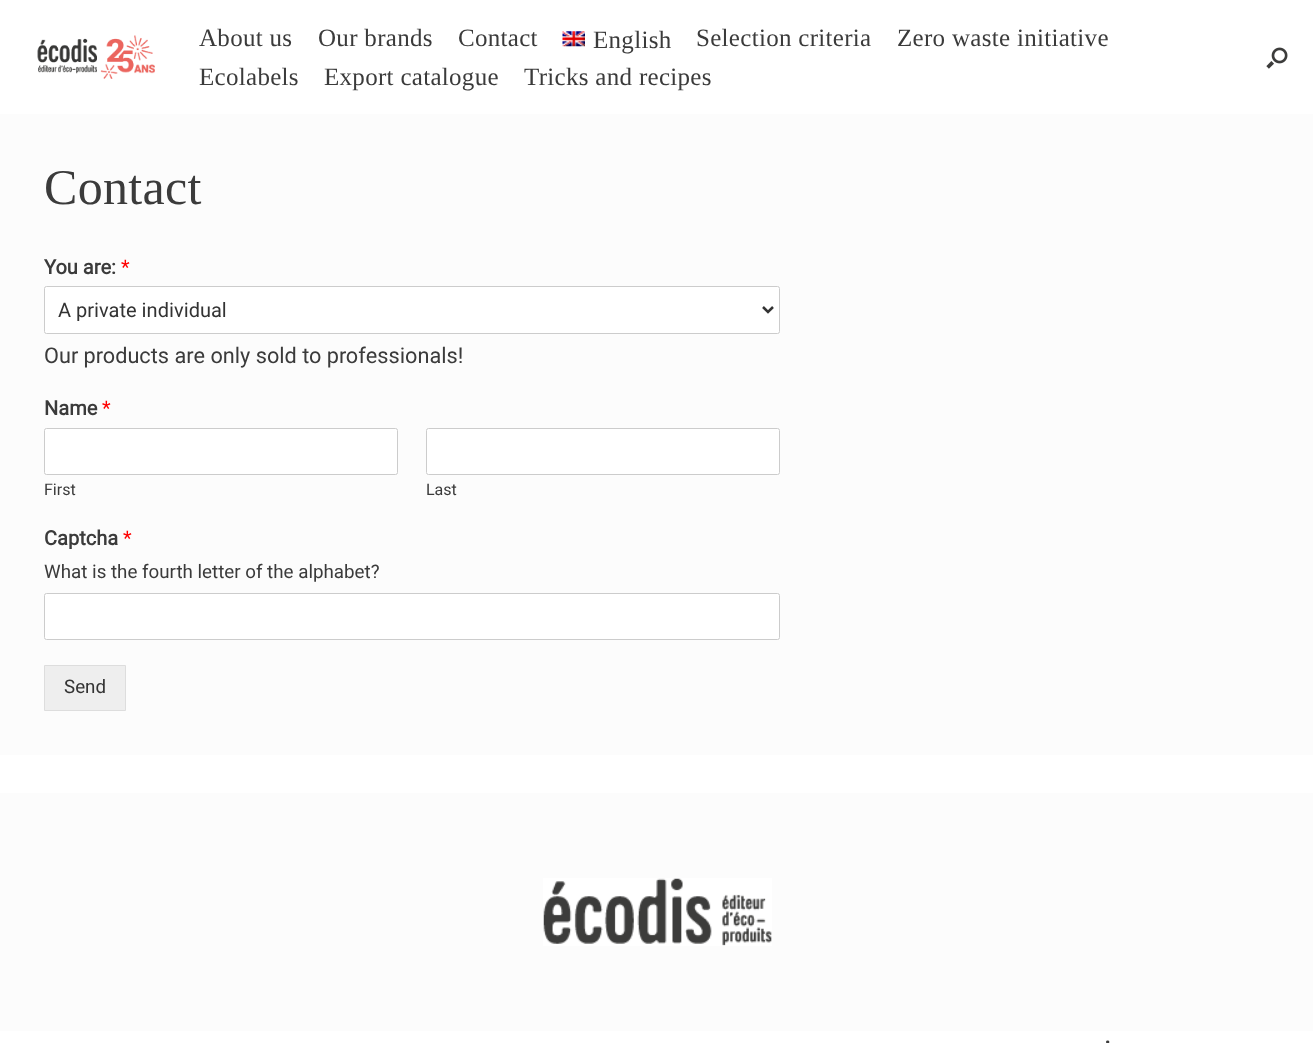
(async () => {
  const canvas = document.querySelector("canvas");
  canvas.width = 1313;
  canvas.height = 1043;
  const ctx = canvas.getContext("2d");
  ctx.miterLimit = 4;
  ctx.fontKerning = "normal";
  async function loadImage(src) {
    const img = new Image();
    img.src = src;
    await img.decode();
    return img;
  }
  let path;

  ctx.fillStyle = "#ffffff";
  ctx.fillRect(0, 0, 1313, 1043);
  ctx.drawImage(await loadImage("img/1.png"), 37, 35, 118, 44);
  ctx.drawImage(await loadImage("img/2.png"), 562, 31, 23, 16);
  ctx.drawImage(await loadImage("img/3.png"), 1266, 47, 22, 22);
  ctx.fillStyle = "#fcfcfc";
  ctx.fillRect(0, 114, 1313, 641);
  ctx.fillStyle = "#ffffff";
  ctx.beginPath();
  ctx.roundRect(44.5, 286.5, 735, 47, 2);
  ctx.fill();
  ctx.strokeStyle = "#cccccc";
  ctx.stroke();
  path = new Path2D("M763 307L768 312L773 307");
  ctx.strokeStyle = "#333333";
  ctx.lineWidth = 2.5;
  ctx.stroke(path);
  ctx.beginPath();
  ctx.roundRect(44.5, 428.5, 353, 46, 2);
  ctx.fill();
  ctx.strokeStyle = "#cccccc";
  ctx.lineWidth = 1;
  ctx.stroke();
  ctx.beginPath();
  ctx.roundRect(426.5, 428.5, 353, 46, 2);
  ctx.fill();
  ctx.stroke();
  ctx.beginPath();
  ctx.roundRect(44.5, 593.5, 735, 46, 2);
  ctx.fill();
  ctx.stroke();
  ctx.fillStyle = "#eeeeee";
  ctx.beginPath();
  ctx.rect(44.5, 665.5, 81, 45);
  ctx.fill();
  ctx.strokeStyle = "#dddddd";
  ctx.stroke();
  ctx.fillStyle = "#fcfcfc";
  ctx.fillRect(0, 793, 1313, 238);
  ctx.drawImage(await loadImage("img/4.png"), 543, 878, 229, 68);
  ctx.letterSpacing = "0.3px";
  ctx.font = "25px Liberation Serif";
  ctx.fillStyle = "#3b3b3b";
  for (const [text, x, y] of [
    ["About us", 199, 46],
    ["Our brands", 318, 46],
    ["Contact", 458, 46],
    ["English", 593, 48],
    ["Selection criteria", 696, 46],
    ["Zero waste initiative", 897, 46],
    ["Ecolabels", 199, 85],
    ["Export catalogue", 324, 85],
    ["Tricks and recipes", 524, 85],
  ]) {
    ctx.fillText(text, x, y);
  }
  ctx.font = "50px Liberation Serif";
  ctx.fillText("Contact", 44, 204);
  ctx.letterSpacing = "0px";
  ctx.font = "bold 20px Heebo";
  ctx.fillText("You are:", 44, 274);
  ctx.font = "20px Heebo";
  ctx.fillStyle = "#ff0000";
  ctx.fillText("*", 121, 274);
  ctx.fillStyle = "#333333";
  ctx.fillText("A private individual", 58, 317);
  ctx.font = "21.7px Heebo";
  ctx.fillStyle = "#3b3b3b";
  ctx.fillText("Our products are only sold to professionals!", 44, 363);
  ctx.font = "bold 20px Heebo";
  ctx.fillText("Name", 44, 415);
  ctx.font = "20px Heebo";
  ctx.fillStyle = "#ff0000";
  ctx.fillText("*", 102, 415);
  ctx.font = "16px Heebo";
  ctx.fillStyle = "#3b3b3b";
  ctx.fillText("First", 44, 495);
  ctx.fillText("Last", 426, 495);
  ctx.font = "bold 20px Heebo";
  ctx.fillText("Captcha", 44, 545);
  ctx.font = "20px Heebo";
  ctx.fillStyle = "#ff0000";
  ctx.fillText("*", 123, 545);
  ctx.font = "18.75px Heebo";
  ctx.fillStyle = "#3b3b3b";
  ctx.fillText("What is the fourth letter of the alphabet?", 44, 578);
  ctx.fillStyle = "#333333";
  ctx.fillText("Send", 64, 693);
  ctx.font = "16px Heebo";
  ctx.fillStyle = "#3b3b3b";
  ctx.fillText("•", 1105, 1048);
})();
